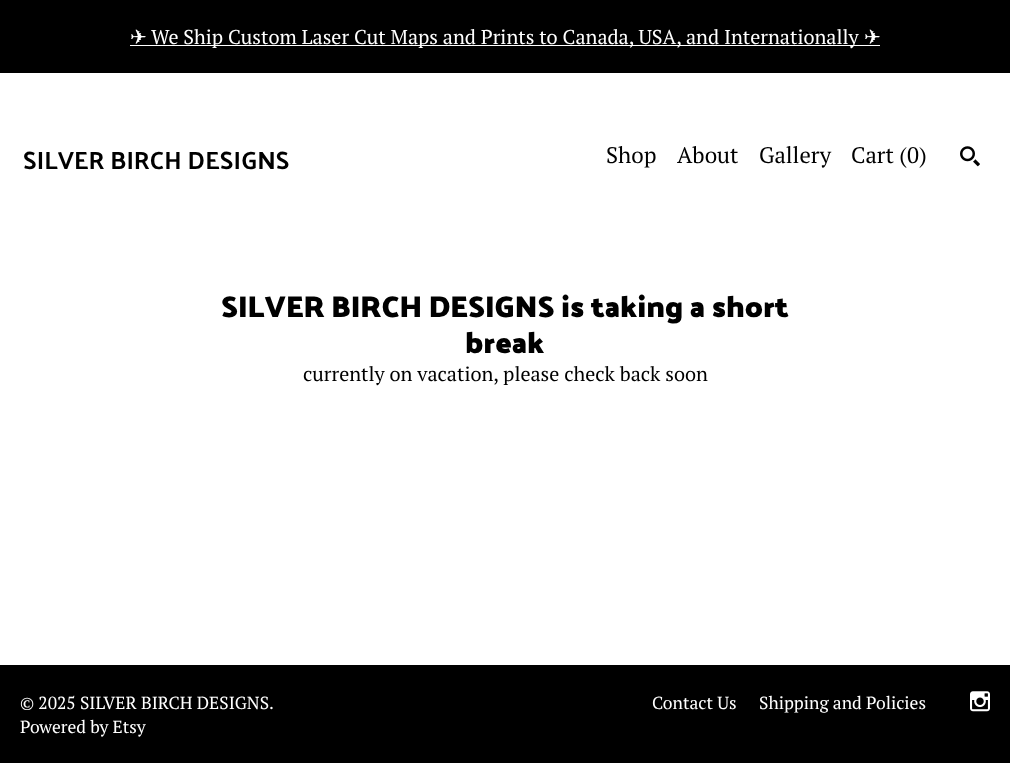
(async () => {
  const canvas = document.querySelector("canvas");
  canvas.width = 1010;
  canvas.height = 763;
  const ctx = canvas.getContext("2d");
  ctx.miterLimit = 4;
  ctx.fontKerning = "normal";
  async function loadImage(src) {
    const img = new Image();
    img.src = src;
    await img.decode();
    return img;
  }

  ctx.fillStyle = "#ffffff";
  ctx.fillRect(0, 0, 1010, 763);
  ctx.fillStyle = "#000000";
  ctx.fillRect(0, 0, 1010, 73);
  ctx.fillStyle = "#ffffff";
  ctx.fillRect(130, 45, 750, 1);
  ctx.drawImage(await loadImage("img/1.png"), 960, 146, 20, 21);
  ctx.fillStyle = "#000000";
  ctx.fillRect(0, 665, 1010, 98);
  ctx.drawImage(await loadImage("img/2.png"), 970, 691, 20, 21);
  ctx.font = "20px DejaVu Sans";
  ctx.fillStyle = "#ffffff";
  ctx.fillText("✈", 130, 44);
  ctx.font = "20px PT Serif";
  ctx.fillText("We Ship Custom Laser Cut Maps and Prints to Canada, USA, and Internationally", 151, 44);
  ctx.font = "20px DejaVu Sans";
  ctx.fillText("✈", 864, 44);
  ctx.font = "25px Palanquin Dark";
  ctx.fillStyle = "#000000";
  ctx.fillText("SILVER BIRCH DESIGNS", 23, 169);
  ctx.font = "22.5px PT Serif";
  for (const [text, x, y] of [
    ["Shop", 606, 163],
    ["About", 677, 163],
    ["Gallery", 759, 163],
    ["Cart (0)", 851, 163],
  ]) {
    ctx.fillText(text, x, y);
  }
  ctx.font = "bold 30px Palanquin Dark";
  ctx.fillText("SILVER BIRCH DESIGNS is taking a short", 221, 317);
  ctx.fillText("break", 465, 353);
  ctx.font = "20px PT Serif";
  ctx.fillText("currently on vacation, please check back soon", 303, 381);
  ctx.font = "17.5px PT Serif";
  ctx.fillStyle = "#ffffff";
  for (const [text, x, y] of [
    ["© 2025 SILVER BIRCH DESIGNS.", 20, 709],
    ["Powered by Etsy", 20, 733],
    ["Contact Us", 652, 709],
    ["Shipping and Policies", 759, 709],
  ]) {
    ctx.fillText(text, x, y);
  }
})();
